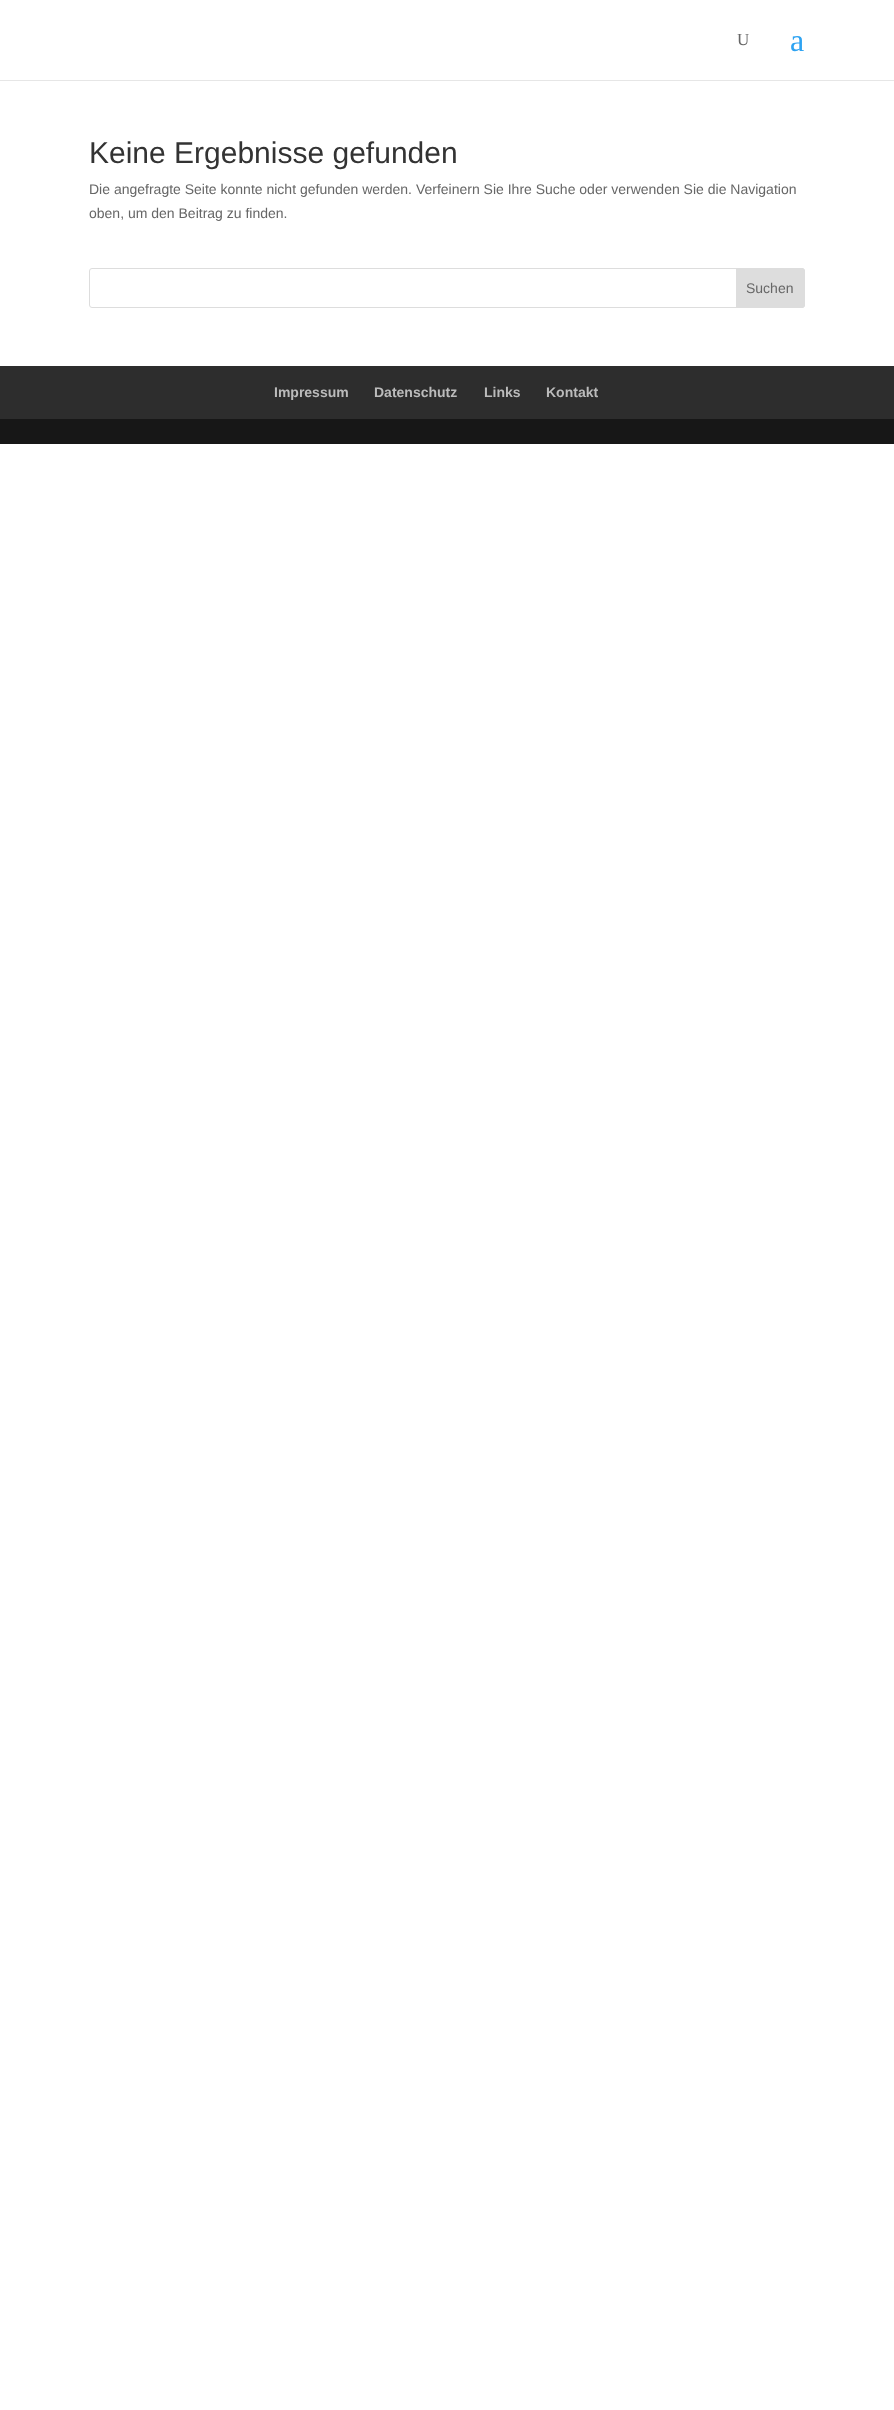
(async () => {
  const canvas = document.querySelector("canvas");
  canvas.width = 894;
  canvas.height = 2410;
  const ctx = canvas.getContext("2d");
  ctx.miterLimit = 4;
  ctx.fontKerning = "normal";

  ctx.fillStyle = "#ffffff";
  ctx.fillRect(0, 0, 894, 2410);
  ctx.fillStyle = "#e6e6e6";
  ctx.fillRect(0, 80, 894, 1);
  ctx.beginPath();
  ctx.roundRect(89.5, 268.5, 715, 39, 2.5);
  ctx.strokeStyle = "#dddddd";
  ctx.stroke();
  ctx.fillStyle = "#dddddd";
  ctx.beginPath();
  ctx.roundRect(736.5, 268.5, 68, 39, [0, 2.5, 2.5, 0]);
  ctx.fill();
  ctx.stroke();
  ctx.fillStyle = "#2d2d2d";
  ctx.fillRect(0, 366, 894, 53);
  ctx.fillStyle = "#171717";
  ctx.fillRect(0, 419, 894, 25);
  ctx.font = "17px Liberation Serif";
  ctx.fillStyle = "#666666";
  ctx.fillText("U", 737, 45);
  ctx.font = "32px Liberation Serif";
  ctx.fillStyle = "#2ea3f2";
  ctx.fillText("a", 790, 51);
  ctx.font = "30px Liberation Sans";
  ctx.fillStyle = "#333333";
  ctx.fillText("Keine Ergebnisse gefunden", 89, 163);
  ctx.font = "14px Liberation Sans";
  ctx.fillStyle = "#666666";
  for (const [text, x, y] of [
    ["Die angefragte Seite konnte nicht gefunden werden. Verfeinern Sie Ihre Suche oder verwenden Sie die Navigation", 89, 194],
    ["oben, um den Beitrag zu finden.", 89, 218],
    ["Suchen", 746, 293],
  ]) {
    ctx.fillText(text, x, y);
  }
  ctx.font = "bold 14px Liberation Sans";
  ctx.fillStyle = "#bbbbbb";
  for (const [text, x, y] of [
    ["Impressum", 274, 397],
    ["Datenschutz", 374, 397],
    ["Links", 484, 397],
    ["Kontakt", 546, 397],
  ]) {
    ctx.fillText(text, x, y);
  }
})();
